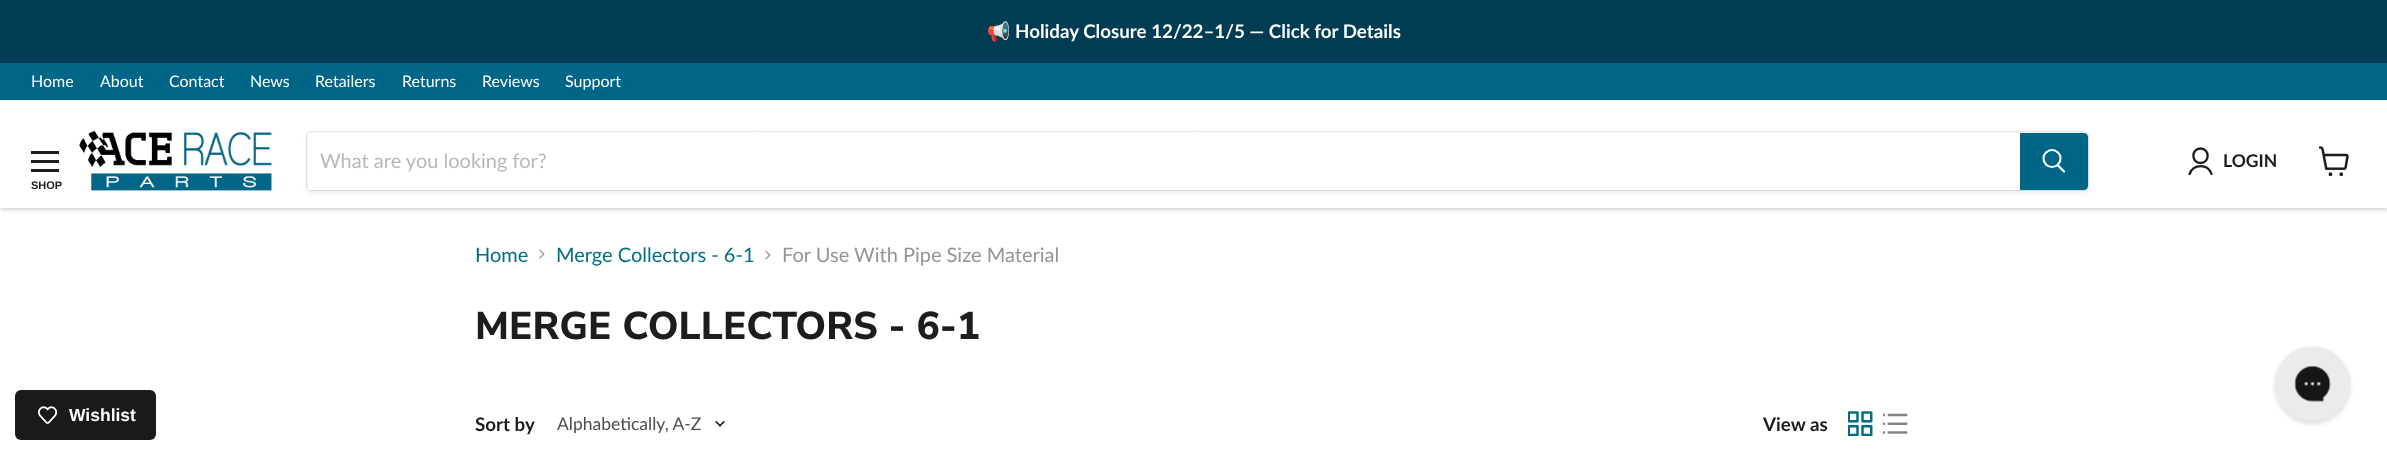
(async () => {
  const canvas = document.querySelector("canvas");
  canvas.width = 2387;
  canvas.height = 455;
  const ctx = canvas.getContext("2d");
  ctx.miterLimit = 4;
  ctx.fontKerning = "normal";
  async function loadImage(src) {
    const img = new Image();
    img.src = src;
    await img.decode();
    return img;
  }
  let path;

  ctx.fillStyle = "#ffffff";
  ctx.fillRect(0, 0, 2387, 455);
  ctx.fillStyle = "#003c52";
  ctx.fillRect(0, 0, 2387, 63);
  ctx.fillStyle = "rgba(128, 128, 128, 0.25)";
  ctx.filter = "blur(2.5px)";
  ctx.beginPath();
  ctx.rect(0, 103, 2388, 106);
  ctx.fill();
  ctx.filter = "none";
  ctx.filter = "blur(2.5px)";
  ctx.beginPath();
  ctx.rect(0, 103, 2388, 106);
  ctx.fill();
  ctx.filter = "none";
  ctx.fillStyle = "#006688";
  ctx.fillRect(0, 63, 2387, 37);
  ctx.fillStyle = "#ffffff";
  ctx.fillRect(0, 100, 2387, 108);
  ctx.drawImage(await loadImage("img/1.png"), 79, 131, 193, 60);
  ctx.fillStyle = "rgba(128, 128, 128, 0.11)";
  ctx.filter = "blur(2px)";
  ctx.beginPath();
  ctx.roundRect(306, 134, 1783, 60, 5);
  ctx.fill();
  ctx.filter = "none";
  ctx.beginPath();
  ctx.roundRect(306.5, 131.5, 1782, 59, 4.5);
  ctx.strokeStyle = "rgba(128, 128, 128, 0.2)";
  ctx.stroke();
  ctx.fillStyle = "#ffffff";
  ctx.fillRect(308, 133, 1712, 57);
  ctx.fillStyle = "#006688";
  ctx.beginPath();
  ctx.roundRect(2020.5, 133.5, 67, 56, [0, 3.5, 3.5, 0]);
  ctx.fill();
  ctx.strokeStyle = "#006688";
  ctx.stroke();
  path = new Path2D("M2064 171.5L2058 165.5");
  ctx.strokeStyle = "#ffffff";
  ctx.lineWidth = 2.2;
  ctx.lineCap = "round";
  ctx.stroke(path);
  ctx.beginPath();
  ctx.arc(2052, 158.5, 8.5, 0, Math.PI * 2);
  ctx.stroke();
  path = new Path2D("M2200.5 163C2210 163 2210 148.5 2200.5 148.5C2191 148.5 2191 163 2200.5 163ZM2211.5 174C2208 163.5 2193.5 163.5 2189.5 174");
  ctx.strokeStyle = "#1d1d1d";
  ctx.lineWidth = 2.3;
  ctx.lineJoin = "round";
  ctx.stroke(path);
  ctx.drawImage(await loadImage("img/2.png"), 2319, 146, 30, 30);
  for (const [x, y, w, h, color] of [
    [31, 151, 28, 3, "#1d1d1d"],
    [31, 160, 28, 3, "#1d1d1d"],
    [31, 169, 28, 3, "#1d1d1d"],
  ]) {
    ctx.fillStyle = color;
    ctx.fillRect(x, y, w, h);
  }
  ctx.fillStyle = "#1a1a1a";
  ctx.beginPath();
  ctx.roundRect(15, 390, 141, 50, 6);
  ctx.fill();
  ctx.drawImage(await loadImage("img/3.png"), 38, 406, 20, 18);
  ctx.drawImage(await loadImage("img/4.png"), 539, 249, 6, 10);
  ctx.drawImage(await loadImage("img/5.png"), 765, 250, 6, 10);
  ctx.drawImage(await loadImage("img/6.png"), 715, 420, 10, 7);
  ctx.drawImage(await loadImage("img/7.png"), 1848, 411, 25, 25);
  ctx.drawImage(await loadImage("img/8.png"), 1883, 413, 25, 21);
  ctx.drawImage(await loadImage("img/9.png"), 2272, 346, 81, 80);
  ctx.font = "bold 18.75px Noto Color Emoji";
  ctx.fillStyle = "#ffffff";
  ctx.fillText("📢", 987, 38);
  ctx.font = "bold 18.75px Lato";
  ctx.fillText("Holiday Closure 12/22–1/5 — Click for Details", 1015, 38);
  ctx.font = "16px Lato";
  for (const [text, x, y] of [
    ["Home", 31, 87],
    ["About", 100, 87],
    ["Contact", 169, 87],
    ["News", 250, 87],
    ["Retailers", 315, 87],
    ["Returns", 402, 87],
    ["Reviews", 482, 87],
    ["Support", 565, 87],
  ]) {
    ctx.fillText(text, x, y);
  }
  ctx.font = "20px Lato";
  ctx.fillStyle = "#b8b8b8";
  ctx.fillText("What are you looking for?", 320, 168);
  ctx.font = "bold 17.5px Lato";
  ctx.fillStyle = "#1d1d1d";
  ctx.fillText("LOGIN", 2223, 167);
  ctx.font = "bold 11px Liberation Sans";
  ctx.fillText("SHOP", 31, 189);
  ctx.font = "bold 17.5px Liberation Sans";
  ctx.fillStyle = "#ffffff";
  ctx.fillText("Wishlist", 69, 421);
  ctx.font = "20px Lato";
  ctx.fillStyle = "#046e82";
  ctx.fillText("Home", 475, 262);
  ctx.fillText("Merge Collectors - 6-1", 556, 262);
  ctx.fillStyle = "#949494";
  ctx.fillText("For Use With Pipe Size Material", 782, 262);
  ctx.font = "800 38.75px Nunito Sans";
  ctx.fillStyle = "#1d1d1d";
  ctx.fillText("MERGE COLLECTORS - 6-1", 475, 339);
  ctx.font = "bold 18.75px Lato";
  ctx.fillText("Sort by", 475, 431);
  ctx.font = "17.5px Lato";
  ctx.fillStyle = "#4d4d4d";
  ctx.fillText("Alphabetically, A-Z", 557, 430);
  ctx.font = "bold 18.75px Lato";
  ctx.fillStyle = "#1d1d1d";
  ctx.fillText("View as", 1763, 431);
})();
